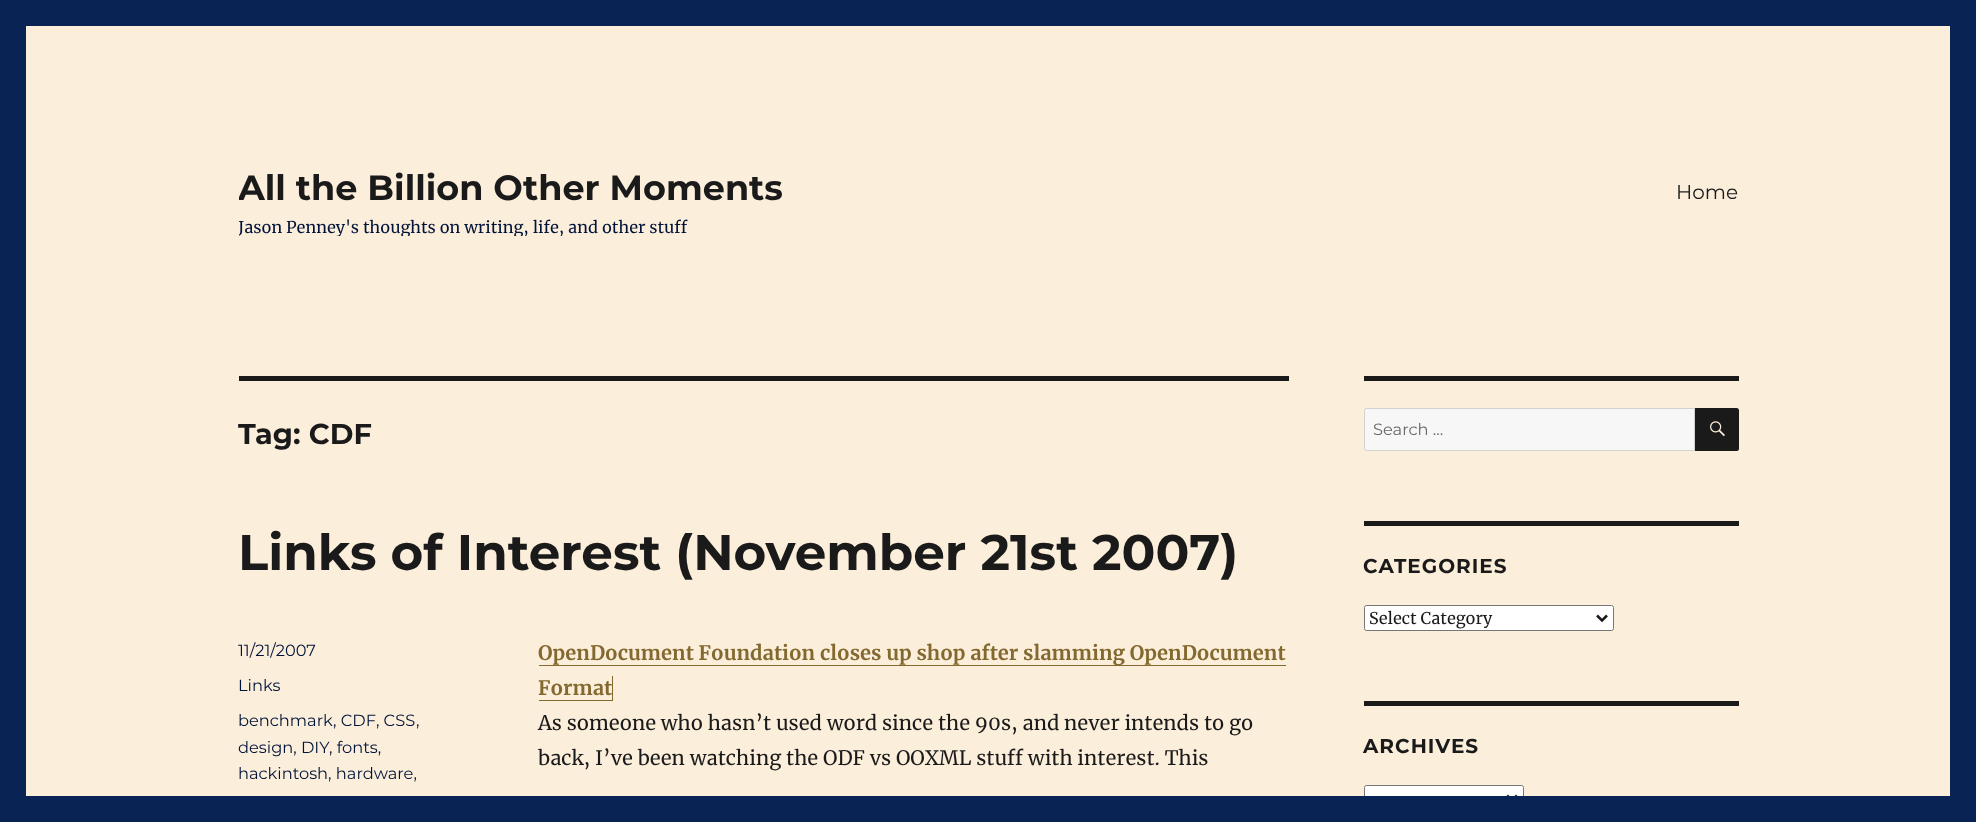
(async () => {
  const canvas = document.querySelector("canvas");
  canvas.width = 1976;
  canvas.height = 822;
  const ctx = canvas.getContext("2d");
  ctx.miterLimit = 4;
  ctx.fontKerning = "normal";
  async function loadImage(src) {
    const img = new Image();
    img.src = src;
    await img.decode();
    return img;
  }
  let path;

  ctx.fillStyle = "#092355";
  ctx.fillRect(0, 0, 1976, 822);
  for (const [x, y, w, h, color] of [
    [26, 26, 1924, 770, "#fbeeda"],
    [239, 376, 1050, 5, "#1a1a1a"],
    [539, 665, 747, 1, "#836930"],
  ]) {
    ctx.fillStyle = color;
    ctx.fillRect(x, y, w, h);
  }
  path = new Path2D("M539 700V701H613V676H612V700Z");
  ctx.fill(path);
  ctx.fillStyle = "#1a1a1a";
  ctx.fillRect(1364, 376, 375, 5);
  ctx.fillStyle = "#f7f7f7";
  ctx.beginPath();
  ctx.roundRect(1364.5, 408.5, 330, 42, [2, 0, 0, 2]);
  ctx.fill();
  ctx.strokeStyle = "#d1d1d1";
  ctx.stroke();
  ctx.fillStyle = "#1a1a1a";
  ctx.beginPath();
  ctx.roundRect(1695, 408, 44, 43, [0, 2.5, 2.5, 0]);
  ctx.fill();
  ctx.drawImage(await loadImage("img/1.png"), 1710, 421, 15, 16);
  ctx.fillRect(1364, 521, 375, 5);
  ctx.fillStyle = "#ffffff";
  ctx.beginPath();
  ctx.roundRect(1364.5, 605.5, 249, 25, 2);
  ctx.fill();
  ctx.strokeStyle = "#767676";
  ctx.stroke();
  path = new Path2D("M1597 615.5L1602 620.5L1607 615.5");
  ctx.strokeStyle = "#1a1a1a";
  ctx.lineWidth = 2.5;
  ctx.stroke(path);
  ctx.fillStyle = "#1a1a1a";
  ctx.fillRect(1364, 701, 375, 5);
  ctx.fillStyle = "#ffffff";
  ctx.beginPath();
  ctx.roundRect(1364.5, 785.5, 159, 25, 2);
  ctx.fill();
  ctx.strokeStyle = "#767676";
  ctx.lineWidth = 1;
  ctx.stroke();
  path = new Path2D("M1507 795.5L1512 800.5L1517 795.5");
  ctx.strokeStyle = "#1a1a1a";
  ctx.lineWidth = 2.5;
  ctx.stroke(path);
  ctx.fillStyle = "#092355";
  ctx.fillRect(1364, 796, 160, 15);
  ctx.save();
  ctx.beginPath();
  ctx.rect(239, 166, 544, 70);
  ctx.clip();
  ctx.font = "100 35px Montserrat";
  ctx.fillStyle = "#1a1a1a";
  ctx.fillText("All the Billion Other Moments", 238, 200);
  ctx.font = "16.25px Merriweather";
  ctx.fillStyle = "#01133a";
  ctx.fillText("Jason Penney's thoughts on writing, life, and other stuff", 238, 233);
  ctx.restore();
  ctx.font = "100 20px 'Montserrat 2'";
  ctx.fillStyle = "#1a1a1a";
  ctx.fillText("Home", 1676, 199);
  ctx.font = "100 28.75px Montserrat";
  ctx.fillText("Tag: CDF", 238, 444);
  ctx.font = "100 50px Montserrat";
  ctx.fillText("Links of Interest (November 21st 2007)", 238, 570);
  ctx.font = "100 16.25px 'Montserrat 2'";
  ctx.fillStyle = "#01133a";
  for (const [text, x, y] of [
    ["11/21/2007", 238, 656],
    ["Links", 238, 691],
    ["benchmark, CDF, CSS", 238, 726],
    [",", 416, 726],
    ["design, DIY", 238, 753],
    [", fonts,", 329, 753],
    ["hackintosh, hardware,", 238, 779],
  ]) {
    ctx.fillText(text, x, y);
  }
  ctx.font = "bold 20px Merriweather";
  ctx.fillStyle = "#836930";
  ctx.fillText("OpenDocument Foundation closes up shop after slamming OpenDocument", 538, 660);
  ctx.fillText("Format", 538, 695);
  ctx.font = "20px Merriweather";
  ctx.fillStyle = "#1a1a1a";
  ctx.fillText("As someone who hasn’t used word since the 90s, and never intends to go", 538, 730);
  ctx.fillText("back, I’ve been watching the ODF vs OOXML stuff with interest. This", 538, 765);
  ctx.font = "100 16.25px 'Montserrat 2'";
  ctx.fillStyle = "#686868";
  ctx.fillText("Search …", 1373, 435);
  ctx.letterSpacing = "1px";
  ctx.font = "100 20px Montserrat";
  ctx.fillStyle = "#1a1a1a";
  ctx.fillText("CATEGORIES", 1363, 573);
  ctx.letterSpacing = "0px";
  ctx.font = "16.25px Merriweather";
  ctx.fillText("Select Category", 1369, 624);
  ctx.letterSpacing = "1px";
  ctx.font = "100 20px Montserrat";
  ctx.fillText("ARCHIVES", 1363, 753);
})();
